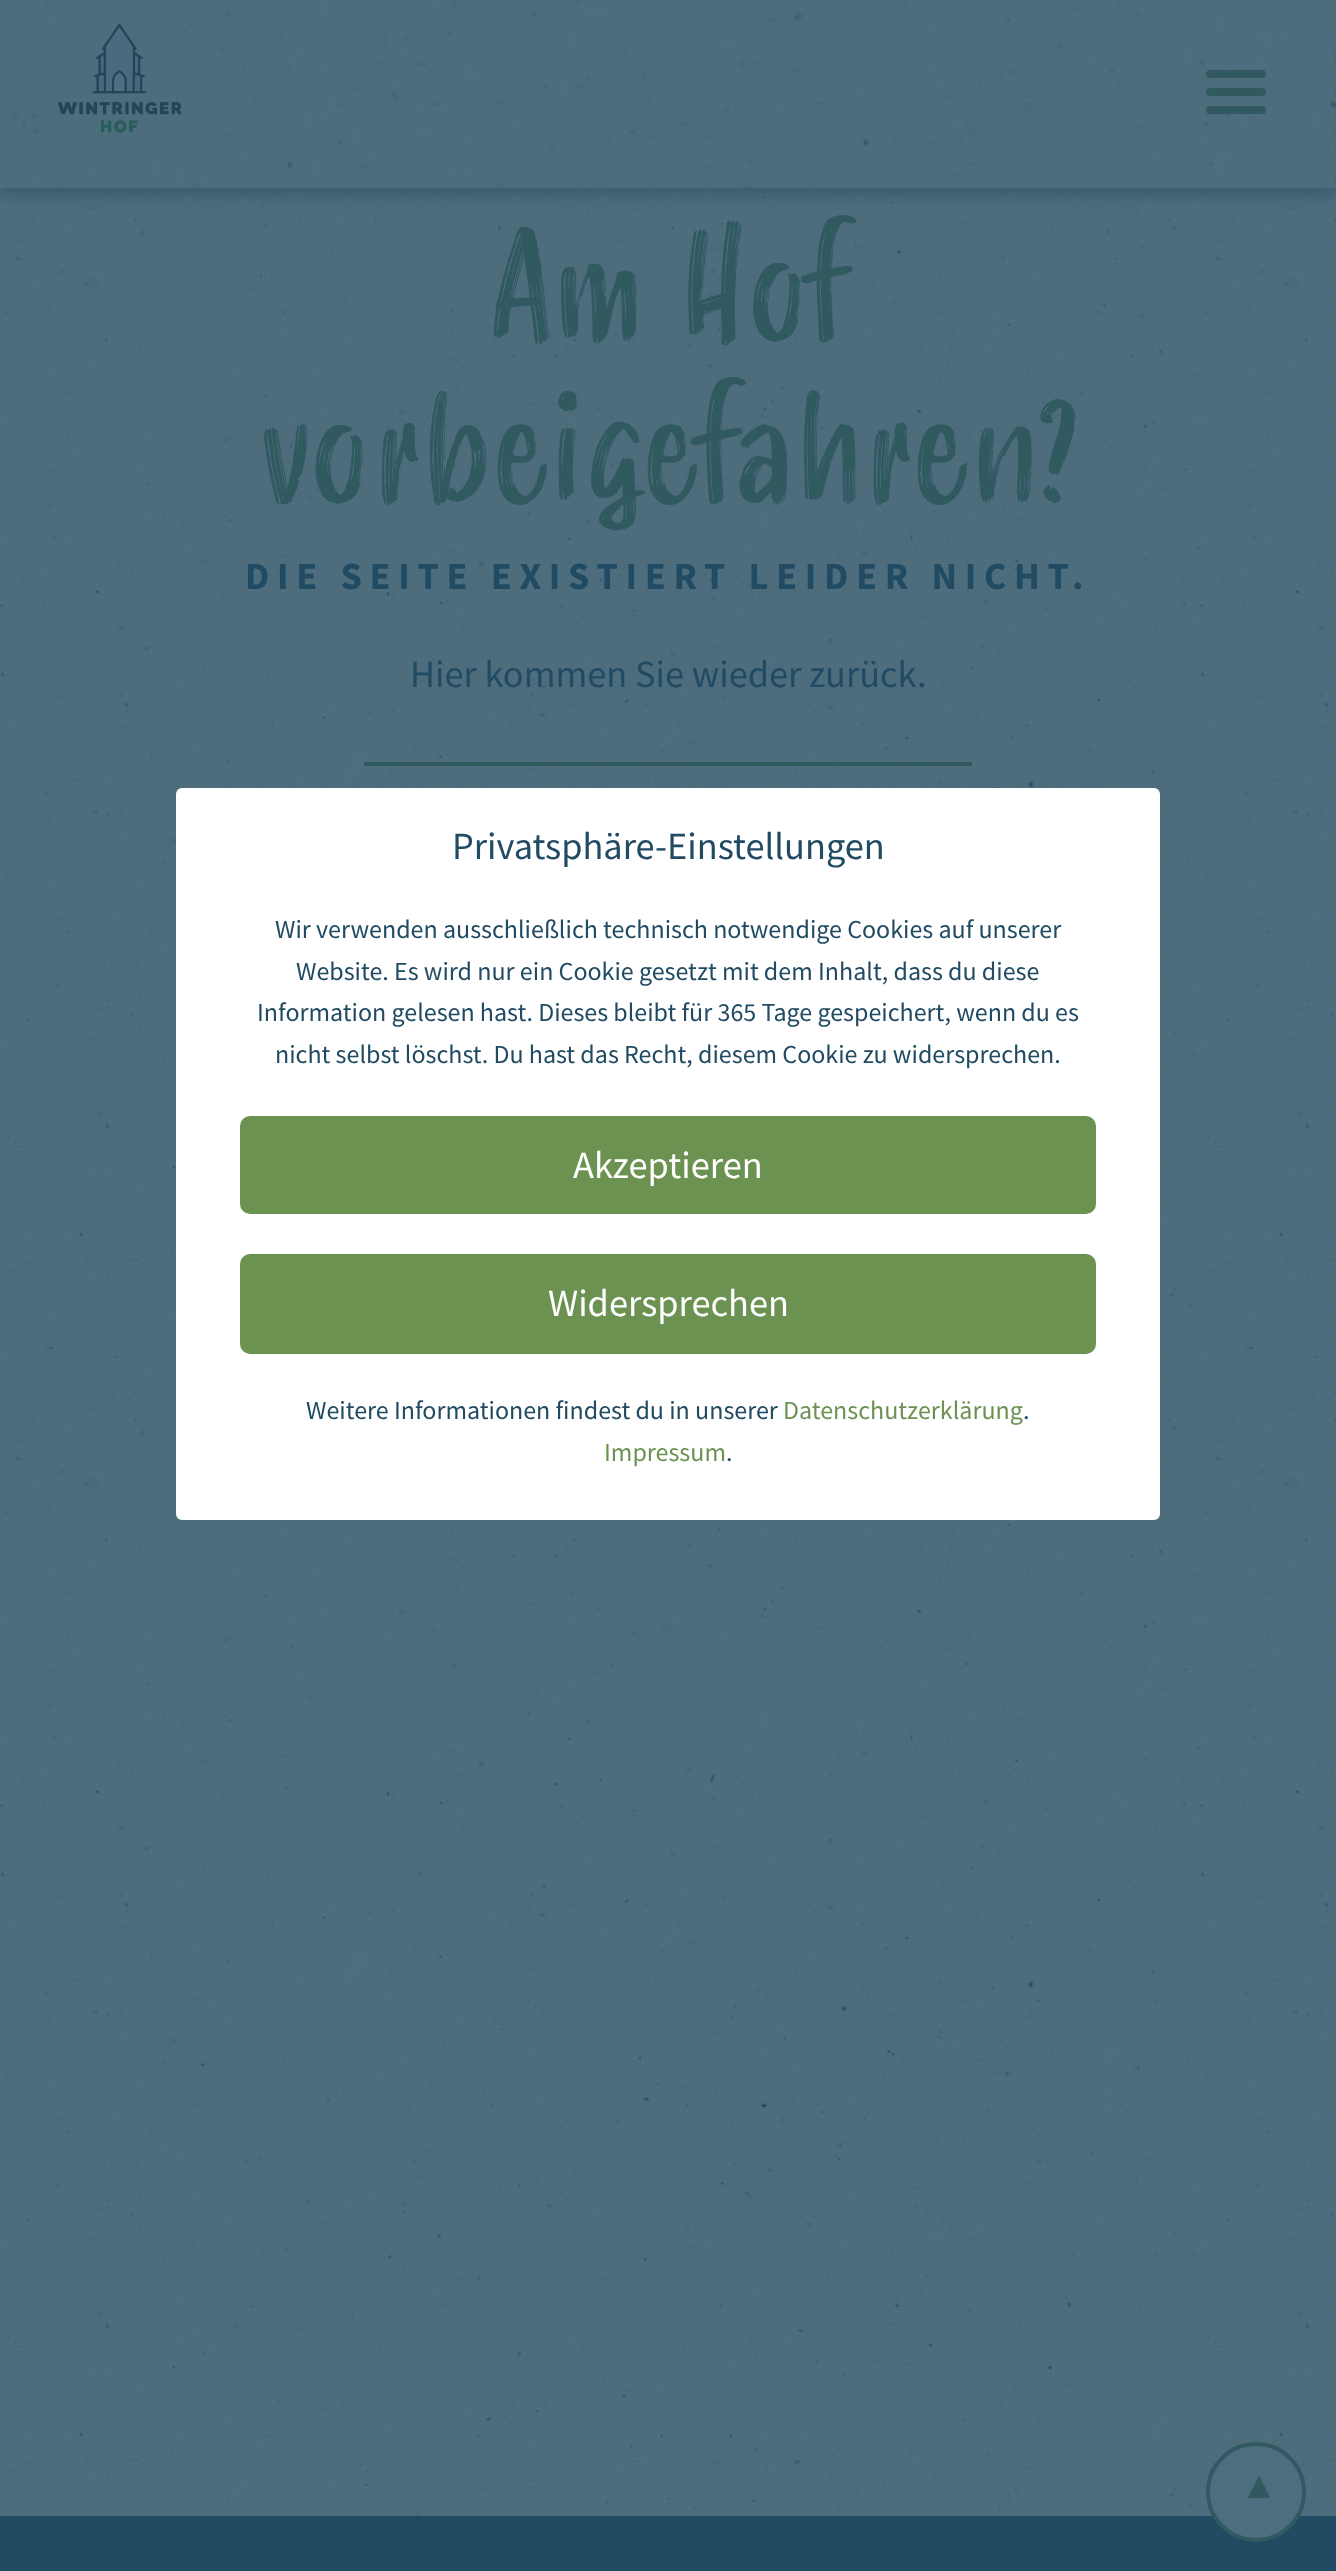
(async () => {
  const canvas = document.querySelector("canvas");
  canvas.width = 1336;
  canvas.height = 2571;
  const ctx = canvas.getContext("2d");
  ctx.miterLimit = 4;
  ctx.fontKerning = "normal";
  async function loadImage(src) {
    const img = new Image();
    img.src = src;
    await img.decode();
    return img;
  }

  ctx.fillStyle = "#ffffff";
  ctx.fillRect(0, 0, 1336, 2571);
  ctx.drawImage(await loadImage("img/1.png"), 0, 0, 1336, 2516);
  ctx.fillStyle = "rgba(26, 60, 79, 0.41)";
  ctx.filter = "blur(7px)";
  ctx.beginPath();
  ctx.rect(0, 6, 1336, 188);
  ctx.fill();
  ctx.filter = "none";
  ctx.drawImage(await loadImage("img/2.png"), 0, 0, 1336, 189);
  ctx.drawImage(await loadImage("img/3.png"), 39, 0, 163, 163);
  ctx.fillStyle = "#305960";
  ctx.beginPath();
  ctx.roundRect(1206, 70, 60, 8, 4);
  ctx.fill();
  ctx.beginPath();
  ctx.roundRect(1206, 88, 60, 8, 4);
  ctx.fill();
  ctx.beginPath();
  ctx.roundRect(1206, 106, 60, 8, 4);
  ctx.fill();
  ctx.fillRect(364, 762, 608, 4);
  ctx.fillStyle = "#214b63";
  ctx.fillRect(0, 2516, 1336, 55);
  ctx.fillStyle = "#4d6e7e";
  ctx.beginPath();
  ctx.arc(1256, 2492, 48, 0, Math.PI * 2);
  ctx.fill();
  ctx.strokeStyle = "#305960";
  ctx.lineWidth = 4;
  ctx.stroke();
  ctx.fillStyle = "#ffffff";
  ctx.beginPath();
  ctx.roundRect(176, 788, 984, 732, 6);
  ctx.fill();
  ctx.fillStyle = "#6c9252";
  ctx.beginPath();
  ctx.roundRect(240, 1116, 856, 98, 10);
  ctx.fill();
  ctx.beginPath();
  ctx.roundRect(240, 1254, 856, 100, 10);
  ctx.fill();
  ctx.font = "147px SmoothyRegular";
  ctx.fillStyle = "#305960";
  ctx.fillText("Am Hof", 490, 339);
  ctx.fillText("vorbeigefahren?", 260, 501);
  ctx.letterSpacing = "7.7px";
  ctx.font = "bold 38.4px Source Sans Pro";
  ctx.fillStyle = "#214b63";
  ctx.fillText("DIE SEITE EXISTIERT LEIDER NICHT.", 245, 589);
  ctx.letterSpacing = "0px";
  ctx.font = "38.4px Source Sans Pro";
  ctx.fillText("Hier kommen Sie wieder zurück.", 410, 687);
  ctx.font = "38.4px Liberation Sans";
  ctx.fillStyle = "#305960";
  ctx.fillText("▲", 1240, 2498);
  ctx.font = "38.4px Source Sans Pro";
  ctx.fillStyle = "#214b63";
  ctx.fillText("Privatsphäre-Einstellungen", 452, 859);
  ctx.font = "26px Source Sans Pro";
  for (const [text, x, y] of [
    ["Wir verwenden ausschließlich technisch notwendige Cookies auf unserer", 275, 938],
    ["Website. Es wird nur ein Cookie gesetzt mit dem Inhalt, dass du diese", 296, 980],
    ["Information gelesen hast. Dieses bleibt für 365 Tage gespeichert, wenn du es", 257, 1021],
    ["nicht selbst löschst. Du hast das Recht, diesem Cookie zu widersprechen.", 275, 1063],
  ]) {
    ctx.fillText(text, x, y);
  }
  ctx.font = "38.4px Source Sans Pro";
  ctx.fillStyle = "#ffffff";
  ctx.fillText("Akzeptieren", 573, 1178);
  ctx.fillText("Widersprechen", 548, 1316);
  ctx.font = "26px Source Sans Pro";
  ctx.fillStyle = "#214b63";
  ctx.fillText("Weitere Informationen findest du in unserer", 306, 1419);
  ctx.fillStyle = "#6c9252";
  ctx.fillText("Datenschutzerklärung", 783, 1419);
  ctx.fillStyle = "#214b63";
  ctx.fillText(".", 1023, 1419);
  ctx.fillStyle = "#6c9252";
  ctx.fillText("Impressum", 604, 1461);
  ctx.fillStyle = "#214b63";
  ctx.fillText(".", 726, 1461);
})();
